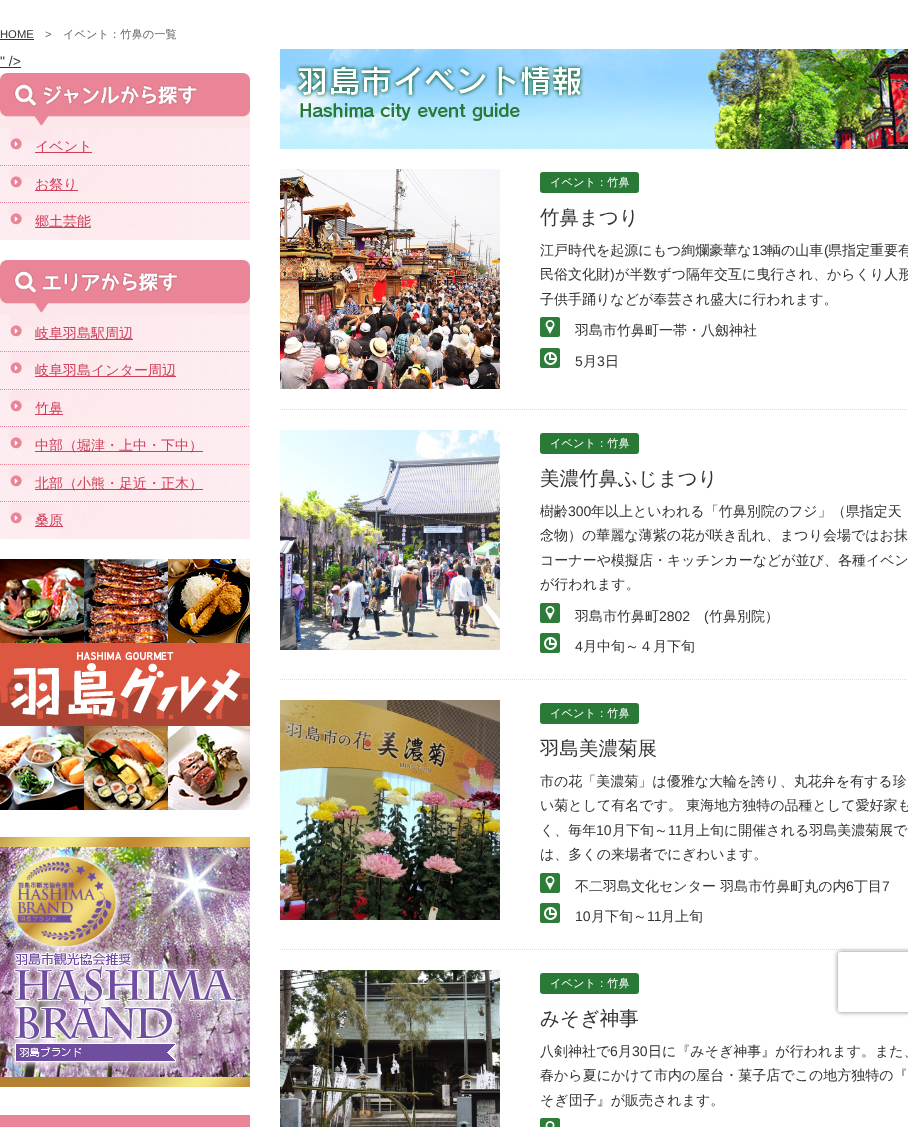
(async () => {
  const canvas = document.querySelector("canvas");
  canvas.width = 908;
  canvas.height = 1127;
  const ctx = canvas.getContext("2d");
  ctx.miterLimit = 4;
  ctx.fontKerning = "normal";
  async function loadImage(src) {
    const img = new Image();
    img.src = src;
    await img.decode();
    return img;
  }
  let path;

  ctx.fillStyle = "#ffffff";
  ctx.fillRect(0, 0, 908, 1127);
  ctx.fillStyle = "#333333";
  ctx.fillRect(0, 39, 34, 1);
  ctx.fillRect(0, 67, 21, 1);
  ctx.drawImage(await loadImage("img/1.png"), 0, 73, 250, 55);
  ctx.drawImage(await loadImage("img/2.png"), 0, 128, 250, 38);
  ctx.drawImage(await loadImage("img/3.png"), 10, 138, 12, 12);
  path = new Path2D("M0 165.5H250");
  ctx.strokeStyle = "#ea8597";
  ctx.setLineDash([1, 1]);
  ctx.stroke(path);
  ctx.fillStyle = "#ce3e58";
  ctx.fillRect(35, 152, 57, 1);
  ctx.drawImage(await loadImage("img/4.png"), 0, 166, 250, 37);
  ctx.drawImage(await loadImage("img/5.png"), 10, 176, 12, 12);
  path = new Path2D("M0 202.5H250");
  ctx.stroke(path);
  ctx.fillRect(35, 190, 43, 1);
  ctx.drawImage(await loadImage("img/6.png"), 0, 203, 250, 37);
  ctx.drawImage(await loadImage("img/3.png"), 10, 213, 12, 12);
  ctx.fillRect(35, 227, 56, 1);
  ctx.drawImage(await loadImage("img/7.png"), 0, 260, 250, 55);
  ctx.drawImage(await loadImage("img/4.png"), 0, 315, 250, 37);
  ctx.drawImage(await loadImage("img/5.png"), 10, 325, 12, 12);
  path = new Path2D("M0 351.5H250");
  ctx.stroke(path);
  ctx.fillRect(35, 339, 98, 1);
  ctx.drawImage(await loadImage("img/2.png"), 0, 352, 250, 38);
  ctx.drawImage(await loadImage("img/3.png"), 10, 362, 12, 12);
  path = new Path2D("M0 389.5H250");
  ctx.stroke(path);
  ctx.fillRect(35, 376, 141, 1);
  ctx.drawImage(await loadImage("img/4.png"), 0, 390, 250, 37);
  ctx.drawImage(await loadImage("img/5.png"), 10, 400, 12, 12);
  path = new Path2D("M0 426.5H250");
  ctx.stroke(path);
  ctx.fillRect(35, 414, 28, 1);
  ctx.drawImage(await loadImage("img/2.png"), 0, 427, 250, 38);
  ctx.drawImage(await loadImage("img/3.png"), 10, 437, 12, 12);
  path = new Path2D("M0 464.5H250");
  ctx.stroke(path);
  ctx.fillRect(35, 451, 168, 1);
  ctx.drawImage(await loadImage("img/4.png"), 0, 465, 250, 37);
  ctx.drawImage(await loadImage("img/5.png"), 10, 475, 12, 12);
  path = new Path2D("M0 501.5H250");
  ctx.stroke(path);
  ctx.fillRect(35, 489, 168, 1);
  ctx.drawImage(await loadImage("img/6.png"), 0, 502, 250, 37);
  ctx.drawImage(await loadImage("img/3.png"), 10, 512, 12, 12);
  ctx.fillRect(35, 526, 28, 1);
  ctx.drawImage(await loadImage("img/8.png"), 0, 559, 250, 251);
  ctx.drawImage(await loadImage("img/9.png"), 0, 837, 250, 250);
  ctx.drawImage(await loadImage("img/10.png"), 280, 49, 628, 100);
  path = new Path2D("M280 409.5H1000");
  ctx.strokeStyle = "#dddddd";
  ctx.stroke(path);
  ctx.drawImage(await loadImage("img/11.png"), 280, 169, 220, 220);
  ctx.fillStyle = "#297937";
  ctx.beginPath();
  ctx.roundRect(540, 172, 99, 21, 3);
  ctx.fill();
  ctx.drawImage(await loadImage("img/12.png"), 540, 317, 20, 20);
  ctx.drawImage(await loadImage("img/13.png"), 540, 348, 20, 20);
  path = new Path2D("M280 679.5H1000");
  ctx.stroke(path);
  ctx.drawImage(await loadImage("img/14.png"), 280, 430, 220, 220);
  ctx.beginPath();
  ctx.roundRect(540, 433, 99, 21, 3);
  ctx.fill();
  ctx.drawImage(await loadImage("img/12.png"), 540, 603, 20, 20);
  ctx.drawImage(await loadImage("img/13.png"), 540, 633, 20, 20);
  path = new Path2D("M280 949.5H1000");
  ctx.stroke(path);
  ctx.drawImage(await loadImage("img/15.png"), 280, 700, 220, 220);
  ctx.beginPath();
  ctx.roundRect(540, 703, 99, 21, 3);
  ctx.fill();
  ctx.drawImage(await loadImage("img/12.png"), 540, 873, 20, 20);
  ctx.drawImage(await loadImage("img/13.png"), 540, 903, 20, 20);
  ctx.drawImage(await loadImage("img/16.png"), 280, 970, 220, 157);
  ctx.beginPath();
  ctx.roundRect(540, 973, 99, 21, 3);
  ctx.fill();
  ctx.drawImage(await loadImage("img/17.png"), 540, 1118, 20, 9);
  ctx.save();
  path = new Path2D("M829 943H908V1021H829ZM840 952H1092C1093 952 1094 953 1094 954V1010C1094 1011 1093 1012 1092 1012H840C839 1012 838 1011 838 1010V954C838 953 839 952 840 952Z");
  ctx.clip(path, "evenodd");
  ctx.fillStyle = "#808080";
  ctx.filter = "blur(2.5px)";
  ctx.beginPath();
  ctx.roundRect(838, 952, 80, 60, 2);
  ctx.fill();
  ctx.filter = "none";
  ctx.restore();
  ctx.fillStyle = "#ea8597";
  ctx.fillRect(0, 1115, 250, 12);
  ctx.font = "11.25px Liberation Sans";
  ctx.fillStyle = "#333333";
  ctx.fillText("HOME", 0, 38);
  ctx.fillStyle = "#666666";
  ctx.fillText(">", 45, 38);
  ctx.font = "500 11.25px WenQuanYi Zen Hei";
  ctx.fillText("イベント：竹鼻の一覧", 63, 38);
  ctx.font = "14px Liberation Sans";
  ctx.fillStyle = "#333333";
  ctx.fillText("\" />", 0, 66);
  ctx.font = "500 14px WenQuanYi Zen Hei";
  ctx.fillStyle = "#ce3e58";
  for (const [text, x, y] of [
    ["イベント", 35, 151],
    ["お祭り", 35, 189],
    ["郷土芸能", 35, 226],
    ["岐阜羽島駅周辺", 35, 338],
    ["岐阜羽島インター周辺", 35, 375],
    ["竹鼻", 35, 413],
    ["中部（堀津・上中・下中）", 35, 450],
    ["北部（小熊・足近・正木）", 35, 488],
    ["桑原", 35, 525],
  ]) {
    ctx.fillText(text, x, y);
  }
  ctx.font = "500 11.25px WenQuanYi Zen Hei";
  ctx.fillStyle = "#ffffff";
  ctx.fillText("イベント：竹鼻", 550, 186);
  ctx.font = "500 19.5px WenQuanYi Zen Hei";
  ctx.fillStyle = "#333333";
  ctx.fillText("竹鼻まつり", 540, 224);
  ctx.font = "500 14px WenQuanYi Zen Hei";
  ctx.fillText("江戸時代を起源にもつ絢爛豪華な", 540, 255);
  ctx.font = "14px Liberation Sans";
  ctx.fillText("13", 752, 255);
  ctx.font = "500 14px WenQuanYi Zen Hei";
  ctx.fillText("輌の山車", 767, 255);
  ctx.font = "14px Liberation Sans";
  ctx.fillText("(", 824, 255);
  ctx.font = "500 14px WenQuanYi Zen Hei";
  ctx.fillText("県指定重要有", 828, 255);
  ctx.fillText("民俗文化財", 540, 279);
  ctx.font = "14px Liberation Sans";
  ctx.fillText(")", 610, 279);
  ctx.font = "500 14px WenQuanYi Zen Hei";
  for (const [text, x, y] of [
    ["が半数ずつ隔年交互に曳行され、からくり人形", 615, 279],
    ["子供手踊りなどが奉芸され盛大に行われます。", 540, 304],
    ["羽島市竹鼻町一帯・八劔神社", 575, 335],
  ]) {
    ctx.fillText(text, x, y);
  }
  ctx.font = "14px Liberation Sans";
  ctx.fillText("5", 575, 366);
  ctx.font = "500 14px WenQuanYi Zen Hei";
  ctx.fillText("月", 583, 366);
  ctx.font = "14px Liberation Sans";
  ctx.fillText("3", 597, 366);
  ctx.font = "500 14px WenQuanYi Zen Hei";
  ctx.fillText("日", 605, 366);
  ctx.font = "500 11.25px WenQuanYi Zen Hei";
  ctx.fillStyle = "#ffffff";
  ctx.fillText("イベント：竹鼻", 550, 447);
  ctx.font = "500 19.5px WenQuanYi Zen Hei";
  ctx.fillStyle = "#333333";
  ctx.fillText("美濃竹鼻ふじまつり", 540, 485);
  ctx.font = "500 14px WenQuanYi Zen Hei";
  ctx.fillText("樹齢", 540, 516);
  ctx.font = "14px Liberation Sans";
  ctx.fillText("300", 568, 516);
  ctx.font = "500 14px WenQuanYi Zen Hei";
  for (const [text, x, y] of [
    ["年以上といわれる「竹鼻別院のフジ」（県指定天", 591, 516],
    ["念物）の華麗な薄紫の花が咲き乱れ、まつり会場ではお抹", 540, 540],
    ["コーナーや模擬店・キッチンカーなどが並び、各種イベン", 540, 565],
    ["が行われます。", 540, 589],
    ["羽島市竹鼻町", 575, 621],
  ]) {
    ctx.fillText(text, x, y);
  }
  ctx.font = "14px Liberation Sans";
  ctx.fillText("2802", 659, 621);
  ctx.fillText("(", 704, 621);
  ctx.font = "500 14px WenQuanYi Zen Hei";
  ctx.fillText("竹鼻別院）", 709, 621);
  ctx.font = "14px Liberation Sans";
  ctx.fillText("4", 575, 651);
  ctx.font = "500 14px WenQuanYi Zen Hei";
  ctx.fillText("月中旬～４月下旬", 583, 651);
  ctx.font = "500 11.25px WenQuanYi Zen Hei";
  ctx.fillStyle = "#ffffff";
  ctx.fillText("イベント：竹鼻", 550, 717);
  ctx.font = "500 19.5px WenQuanYi Zen Hei";
  ctx.fillStyle = "#333333";
  ctx.fillText("羽島美濃菊展", 540, 755);
  ctx.font = "500 14px WenQuanYi Zen Hei";
  for (const [text, x, y] of [
    ["市の花「美濃菊」は優雅な大輪を誇り、丸花弁を有する珍", 540, 786],
    ["い菊として有名です。 東海地方独特の品種として愛好家も", 540, 810],
    ["く、毎年", 540, 835],
  ]) {
    ctx.fillText(text, x, y);
  }
  ctx.font = "14px Liberation Sans";
  ctx.fillText("10", 596, 835);
  ctx.font = "500 14px WenQuanYi Zen Hei";
  ctx.fillText("月下旬～", 612, 835);
  ctx.font = "14px Liberation Sans";
  ctx.fillText("11", 668, 835);
  ctx.font = "500 14px WenQuanYi Zen Hei";
  for (const [text, x, y] of [
    ["月上旬に開催される羽島美濃菊展で", 682, 835],
    ["は、多くの来場者でにぎわいます。", 540, 859],
    ["不二羽島文化センター 羽島市竹鼻町丸の内", 575, 891],
  ]) {
    ctx.fillText(text, x, y);
  }
  ctx.font = "14px Liberation Sans";
  ctx.fillText("6", 846, 891);
  ctx.font = "500 14px WenQuanYi Zen Hei";
  ctx.fillText("丁目", 854, 891);
  ctx.font = "14px Liberation Sans";
  ctx.fillText("7", 882, 891);
  ctx.fillText("10", 575, 921);
  ctx.font = "500 14px WenQuanYi Zen Hei";
  ctx.fillText("月下旬～", 591, 921);
  ctx.font = "14px Liberation Sans";
  ctx.fillText("11", 647, 921);
  ctx.font = "500 14px WenQuanYi Zen Hei";
  ctx.fillText("月上旬", 661, 921);
  ctx.font = "500 11.25px WenQuanYi Zen Hei";
  ctx.fillStyle = "#ffffff";
  ctx.fillText("イベント：竹鼻", 550, 987);
  ctx.font = "500 19.5px WenQuanYi Zen Hei";
  ctx.fillStyle = "#333333";
  ctx.fillText("みそぎ神事", 540, 1025);
  ctx.font = "500 14px WenQuanYi Zen Hei";
  ctx.fillText("八剣神社で", 540, 1056);
  ctx.font = "14px Liberation Sans";
  ctx.fillText("6", 610, 1056);
  ctx.font = "500 14px WenQuanYi Zen Hei";
  ctx.fillText("月", 618, 1056);
  ctx.font = "14px Liberation Sans";
  ctx.fillText("30", 632, 1056);
  ctx.font = "500 14px WenQuanYi Zen Hei";
  for (const [text, x, y] of [
    ["日に『みそぎ神事』が行われます。また、", 648, 1056],
    ["春から夏にかけて市内の屋台・菓子店でこの地方独特の『", 540, 1080],
    ["そぎ団子』が販売されます。", 540, 1105],
  ]) {
    ctx.fillText(text, x, y);
  }
})();
